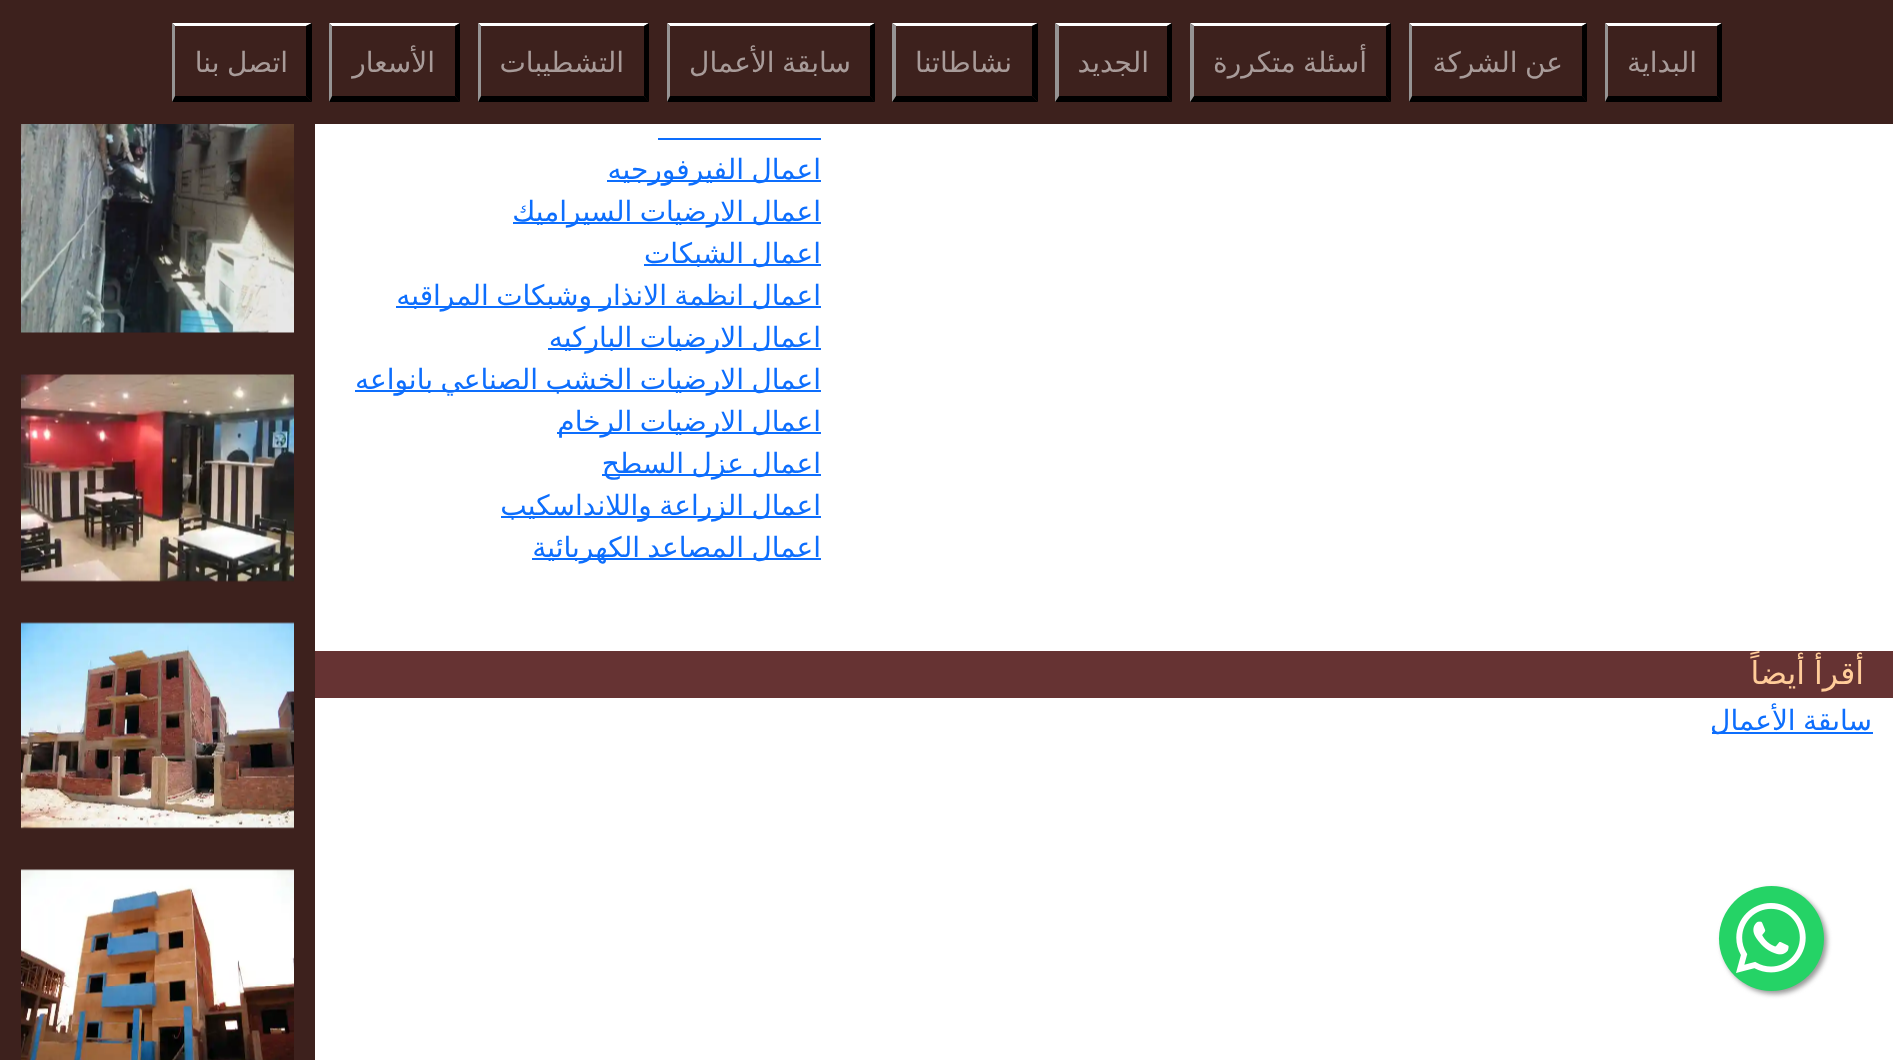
(async () => {
  const canvas = document.querySelector("canvas");
  canvas.width = 1893;
  canvas.height = 1060;
  const ctx = canvas.getContext("2d");
  ctx.miterLimit = 4;
  ctx.fontKerning = "normal";
  async function loadImage(src) {
    const img = new Image();
    img.src = src;
    await img.decode();
    return img;
  }
  let path;

  ctx.fillStyle = "#ffffff";
  ctx.fillRect(0, 0, 1893, 1060);
  ctx.fillStyle = "#3d211d";
  ctx.fillRect(0, 0, 1893, 124);
  ctx.fillStyle = "#ffffff";
  path = new Path2D("M1605 23H1722L1717 26H1608Z");
  ctx.fill(path);
  ctx.fillStyle = "#000000";
  path = new Path2D("M1722 23V102L1717 96V26Z");
  ctx.fill(path);
  path = new Path2D("M1722 102H1605L1608 96H1717Z");
  ctx.fill(path);
  ctx.fillStyle = "#969494";
  path = new Path2D("M1605 102V23L1608 26V96Z");
  ctx.fill(path);
  ctx.fillStyle = "#ffffff";
  path = new Path2D("M1409 23H1587L1582 26H1412Z");
  ctx.fill(path);
  ctx.fillStyle = "#000000";
  path = new Path2D("M1587 23V102L1582 96V26Z");
  ctx.fill(path);
  path = new Path2D("M1587 102H1409L1412 96H1582Z");
  ctx.fill(path);
  ctx.fillStyle = "#969494";
  path = new Path2D("M1409 102V23L1412 26V96Z");
  ctx.fill(path);
  ctx.fillStyle = "#ffffff";
  path = new Path2D("M1190 23H1391L1386 26H1194Z");
  ctx.fill(path);
  ctx.fillStyle = "#000000";
  path = new Path2D("M1391 23V102L1386 96V26Z");
  ctx.fill(path);
  path = new Path2D("M1391 102H1190L1194 96H1386Z");
  ctx.fill(path);
  ctx.fillStyle = "#969494";
  path = new Path2D("M1190 102V23L1194 26V96Z");
  ctx.fill(path);
  ctx.fillStyle = "#ffffff";
  path = new Path2D("M1055 23H1172L1167 26H1059Z");
  ctx.fill(path);
  ctx.fillStyle = "#000000";
  path = new Path2D("M1172 23V102L1167 96V26Z");
  ctx.fill(path);
  path = new Path2D("M1172 102H1055L1059 96H1167Z");
  ctx.fill(path);
  ctx.fillStyle = "#969494";
  path = new Path2D("M1055 102V23L1059 26V96Z");
  ctx.fill(path);
  ctx.fillStyle = "#ffffff";
  path = new Path2D("M892 23H1038L1032 26H896Z");
  ctx.fill(path);
  ctx.fillStyle = "#000000";
  path = new Path2D("M1038 23V102L1032 96V26Z");
  ctx.fill(path);
  path = new Path2D("M1038 102H892L896 96H1032Z");
  ctx.fill(path);
  ctx.fillStyle = "#969494";
  path = new Path2D("M892 102V23L896 26V96Z");
  ctx.fill(path);
  ctx.fillStyle = "#ffffff";
  path = new Path2D("M667 23H875L870 26H670Z");
  ctx.fill(path);
  ctx.fillStyle = "#000000";
  path = new Path2D("M875 23V102L870 96V26Z");
  ctx.fill(path);
  path = new Path2D("M875 102H667L670 96H870Z");
  ctx.fill(path);
  ctx.fillStyle = "#969494";
  path = new Path2D("M667 102V23L670 26V96Z");
  ctx.fill(path);
  ctx.fillStyle = "#ffffff";
  path = new Path2D("M478 23H649L644 26H481Z");
  ctx.fill(path);
  ctx.fillStyle = "#000000";
  path = new Path2D("M649 23V102L644 96V26Z");
  ctx.fill(path);
  path = new Path2D("M649 102H478L481 96H644Z");
  ctx.fill(path);
  ctx.fillStyle = "#969494";
  path = new Path2D("M478 102V23L481 26V96Z");
  ctx.fill(path);
  ctx.fillStyle = "#ffffff";
  path = new Path2D("M329 23H460L455 26H332Z");
  ctx.fill(path);
  ctx.fillStyle = "#000000";
  path = new Path2D("M460 23V102L455 96V26Z");
  ctx.fill(path);
  path = new Path2D("M460 102H329L332 96H455Z");
  ctx.fill(path);
  ctx.fillStyle = "#969494";
  path = new Path2D("M329 102V23L332 26V96Z");
  ctx.fill(path);
  ctx.fillStyle = "#ffffff";
  path = new Path2D("M172 23H312L306 26H175Z");
  ctx.fill(path);
  ctx.fillStyle = "#000000";
  path = new Path2D("M312 23V102L306 96V26Z");
  ctx.fill(path);
  path = new Path2D("M312 102H172L175 96H306Z");
  ctx.fill(path);
  ctx.fillStyle = "#969494";
  path = new Path2D("M172 102V23L175 26V96Z");
  ctx.fill(path);
  ctx.fillStyle = "#999999";
  ctx.filter = "blur(2.5px)";
  ctx.beginPath();
  ctx.roundRect(1722, 889, 105, 105, 52.5);
  ctx.fill();
  ctx.filter = "none";
  ctx.fillStyle = "#25d366";
  ctx.beginPath();
  ctx.arc(1771.5, 938.5, 52.5, 0, Math.PI * 2);
  ctx.fill();
  ctx.drawImage(await loadImage("img/1.png"), 1736, 903, 70, 70);
  for (const [x, y, w, h, color] of [
    [658, 138, 163, 2, "#0d6efd"],
    [607, 180, 214, 2, "#0d6efd"],
    [513, 222, 308, 2, "#0d6efd"],
    [644, 264, 177, 2, "#0d6efd"],
    [396, 306, 425, 2, "#0d6efd"],
    [548, 348, 273, 2, "#0d6efd"],
    [355, 390, 466, 2, "#0d6efd"],
    [557, 432, 264, 2, "#0d6efd"],
    [602, 474, 219, 2, "#0d6efd"],
    [501, 516, 320, 2, "#0d6efd"],
    [532, 558, 289, 2, "#0d6efd"],
    [315, 651, 1578, 47, "#663333"],
    [1712, 732, 161, 2, "#0d6efd"],
    [0, 124, 315, 936, "#3d211d"],
  ]) {
    ctx.fillStyle = color;
    ctx.fillRect(x, y, w, h);
  }
  ctx.drawImage(await loadImage("img/2.png"), 21, 124, 273, 209);
  ctx.drawImage(await loadImage("img/3.png"), 21, 374, 273, 208);
  ctx.drawImage(await loadImage("img/4.png"), 21, 622, 273, 207);
  ctx.drawImage(await loadImage("img/5.png"), 21, 869, 273, 191);
  ctx.direction = "rtl";
  ctx.font = "28px DejaVu Sans";
  ctx.fillStyle = "#a89b99";
  ctx.fillText("البداية", 1697, 72);
  ctx.wordSpacing = "-1.5px";
  ctx.fillText("عن الشركة", 1563, 72);
  ctx.fillText("أسئلة متكررة", 1367, 72);
  ctx.wordSpacing = "0px";
  ctx.fillText("الجديد", 1149, 72);
  ctx.fillText("نشاطاتنا", 1012, 72);
  ctx.wordSpacing = "-1.5px";
  ctx.fillText("سابقة الأعمال", 851, 72);
  ctx.wordSpacing = "0px";
  ctx.fillText("التشطيبات", 624, 72);
  ctx.fillText("الأسعار", 435, 72);
  ctx.wordSpacing = "-1.5px";
  ctx.fillText("اتصل بنا", 288, 72);
  ctx.fillStyle = "#0d6efd";
  for (const [text, x, y] of [
    ["اعمال الفيرفورجيه", 821, 179],
    ["اعمال الارضيات السيراميك", 821, 221],
    ["اعمال الشبكات", 821, 263],
    ["اعمال انظمة الانذار وشبكات المراقبه", 821, 305],
    ["اعمال الارضيات الباركيه", 821, 347],
    ["اعمال الارضيات الخشب الصناعي بانواعه", 821, 389],
    ["اعمال الارضيات الرخام", 821, 431],
    ["اعمال عزل السطح", 821, 473],
    ["اعمال الزراعة واللانداسكيب", 821, 515],
    ["اعمال المصاعد الكهربائية", 821, 557],
  ]) {
    ctx.fillText(text, x, y);
  }
  ctx.wordSpacing = "-1px";
  ctx.font = "31.5px DejaVu Sans";
  ctx.fillStyle = "#ffcc99";
  ctx.fillText("أقرأ أيضاً", 1864, 684);
  ctx.wordSpacing = "-1.5px";
  ctx.font = "28px DejaVu Sans";
  ctx.fillStyle = "#0d6efd";
  ctx.fillText("سابقة الأعمال", 1872, 730);
})();
